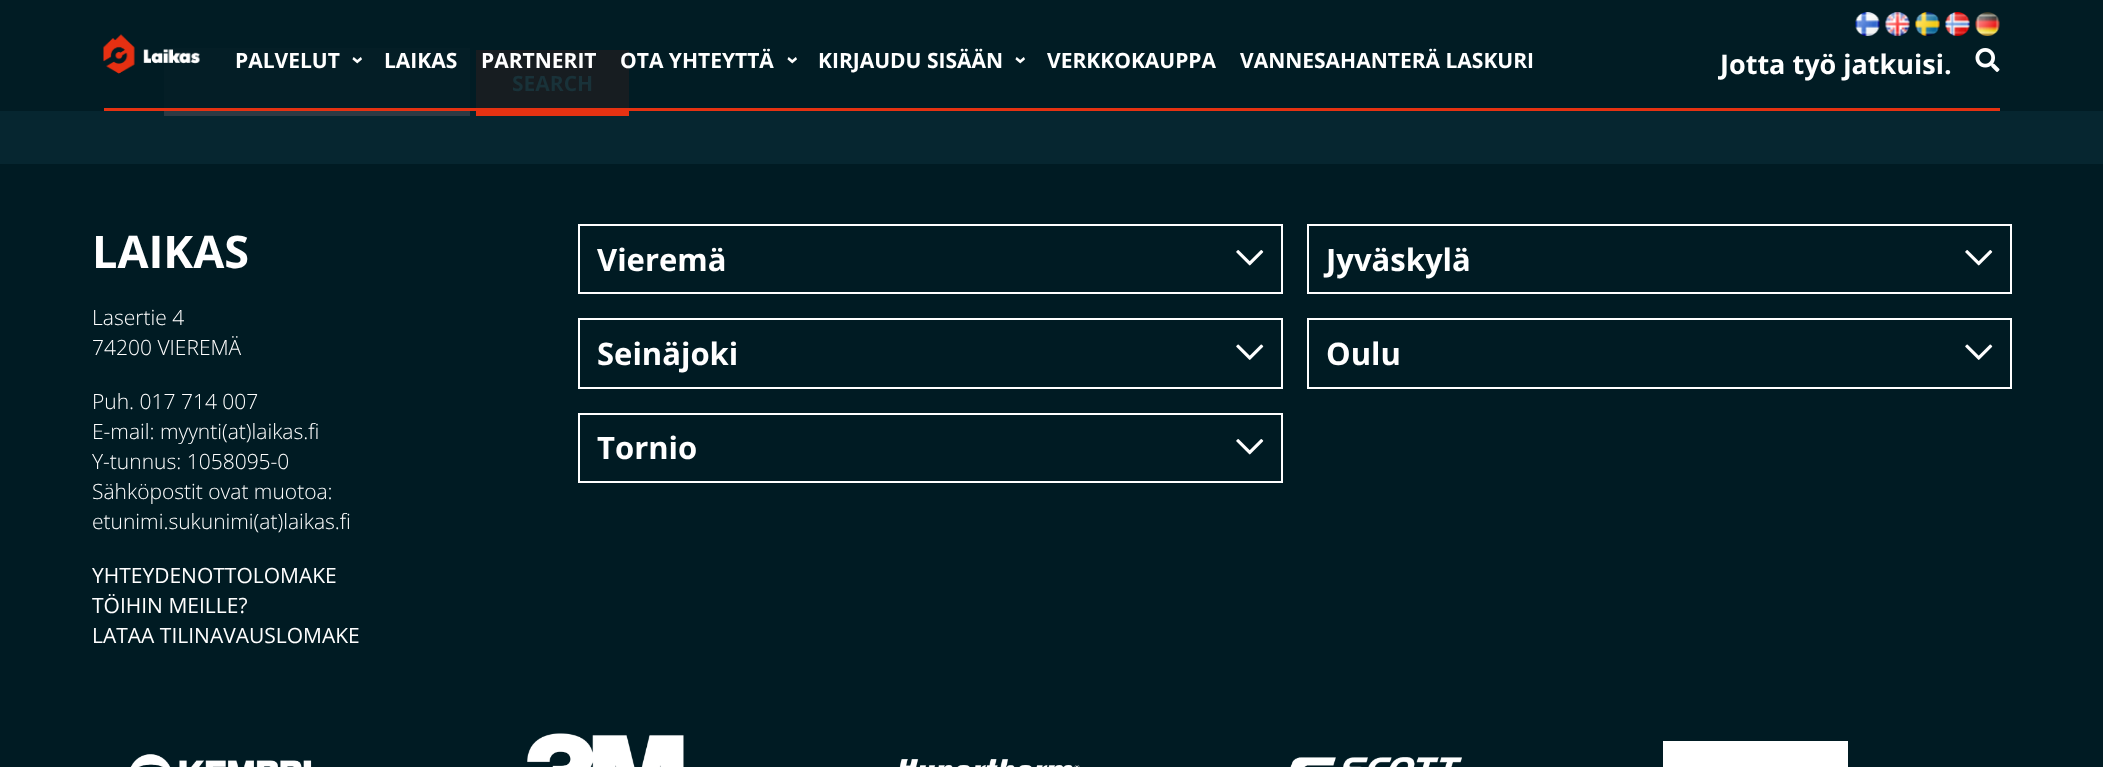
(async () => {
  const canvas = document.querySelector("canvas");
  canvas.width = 2103;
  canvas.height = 767;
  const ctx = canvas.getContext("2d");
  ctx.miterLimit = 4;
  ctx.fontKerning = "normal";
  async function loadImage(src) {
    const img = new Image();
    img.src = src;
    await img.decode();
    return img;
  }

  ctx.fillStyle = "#062630";
  ctx.fillRect(0, 0, 2103, 767);
  for (const [x, y, w, h, color] of [
    [0, 0, 2103, 111, "#011c24"],
    [104, 108, 1896, 3, "#e53212"],
    [164, 48, 306, 60, "#041e26"],
  ]) {
    ctx.fillStyle = color;
    ctx.fillRect(x, y, w, h);
  }
  ctx.drawImage(await loadImage("img/1.png"), 103, 34, 97, 40);
  ctx.drawImage(await loadImage("img/2.png"), 1855, 12, 25, 24);
  ctx.drawImage(await loadImage("img/3.png"), 1885, 12, 25, 24);
  ctx.drawImage(await loadImage("img/4.png"), 1915, 12, 25, 24);
  ctx.drawImage(await loadImage("img/5.png"), 1945, 12, 25, 24);
  ctx.drawImage(await loadImage("img/6.png"), 1975, 12, 25, 24);
  ctx.drawImage(await loadImage("img/7.png"), 1975, 48, 25, 24);
  for (const [x, y, w, h, color] of [
    [164, 111, 306, 5, "#2c3a44"],
    [476, 111, 153, 5, "#e53212"],
    [476, 50, 153, 58, "#171d21"],
    [0, 164, 2103, 603, "#001b23"],
  ]) {
    ctx.fillStyle = color;
    ctx.fillRect(x, y, w, h);
  }
  ctx.strokeStyle = "#ffffff";
  ctx.lineWidth = 2;
  ctx.strokeRect(579, 225, 703, 68);
  ctx.drawImage(await loadImage("img/8.png"), 1236, 250, 28, 16);
  ctx.strokeRect(1308, 225, 703, 68);
  ctx.drawImage(await loadImage("img/8.png"), 1965, 250, 28, 16);
  ctx.strokeRect(579, 319, 703, 69);
  ctx.drawImage(await loadImage("img/9.png"), 1236, 344, 28, 16);
  ctx.strokeRect(1308, 319, 703, 69);
  ctx.drawImage(await loadImage("img/9.png"), 1965, 344, 28, 16);
  ctx.strokeRect(579, 414, 703, 68);
  ctx.drawImage(await loadImage("img/8.png"), 1236, 439, 28, 16);
  ctx.drawImage(await loadImage("img/10.png"), 130, 754, 182, 13);
  ctx.drawImage(await loadImage("img/11.png"), 527, 733, 157, 34);
  ctx.drawImage(await loadImage("img/12.png"), 899, 759, 181, 8);
  ctx.drawImage(await loadImage("img/13.png"), 1290, 757, 172, 10);
  ctx.fillStyle = "#ffffff";
  ctx.fillRect(1663, 741, 185, 26);
  ctx.font = "bold 21px Open Sans";
  ctx.fillText("PALVELUT", 235, 68);
  ctx.save();
  ctx.translate(363, 64);
  ctx.rotate(-90 * Math.PI / 180);
  ctx.fillText("‹", 0, 0);
  ctx.restore();
  for (const [text, x, y] of [
    ["LAIKAS", 384, 68],
    ["PARTNERIT", 481, 68],
    ["OTA YHTEYTTÄ", 620, 68],
  ]) {
    ctx.fillText(text, x, y);
  }
  ctx.save();
  ctx.translate(798, 64);
  ctx.rotate(-90 * Math.PI / 180);
  ctx.fillText("‹", 0, 0);
  ctx.restore();
  ctx.fillText("KIRJAUDU SISÄÄN", 818, 68);
  ctx.save();
  ctx.translate(1026, 64);
  ctx.rotate(-90 * Math.PI / 180);
  ctx.fillText("‹", 0, 0);
  ctx.restore();
  ctx.fillText("VERKKOKAUPPA", 1047, 68);
  ctx.fillText("VANNESAHANTERÄ LASKURI", 1240, 68);
  ctx.font = "bold 27px Open Sans";
  ctx.fillText("Jotta työ jatkuisi.", 1720, 74);
  ctx.font = "bold 21px Open Sans";
  ctx.fillStyle = "#193239";
  ctx.fillText("SEARCH", 512, 91);
  ctx.font = "bold 45px Open Sans";
  ctx.fillStyle = "#ffffff";
  ctx.fillText("LAIKAS", 92, 268);
  ctx.font = "300 21px Open Sans";
  for (const [text, x, y] of [
    ["Lasertie 4", 92, 325],
    ["74200 VIEREMÄ", 92, 355],
    ["Puh. 017 714 007", 92, 409],
    ["E-mail: myynti(at)laikas.fi", 92, 439],
    ["Y-tunnus: 1058095-0", 92, 469],
    ["Sähköpostit ovat muotoa:", 92, 499],
    ["etunimi.sukunimi(at)laikas.fi", 92, 529],
  ]) {
    ctx.fillText(text, x, y);
  }
  ctx.font = "21px Open Sans";
  for (const [text, x, y] of [
    ["YHTEYDENOTTOLOMAKE", 92, 583],
    ["TÖIHIN MEILLE?", 92, 613],
    ["LATAA TILINAVAUSLOMAKE", 92, 643],
  ]) {
    ctx.fillText(text, x, y);
  }
  ctx.font = "bold 31px Open Sans";
  for (const [text, x, y] of [
    ["Vieremä", 597, 271],
    ["Jyväskylä", 1326, 271],
    ["Seinäjoki", 597, 365],
    ["Oulu", 1326, 365],
    ["Tornio", 597, 459],
  ]) {
    ctx.fillText(text, x, y);
  }
})();
